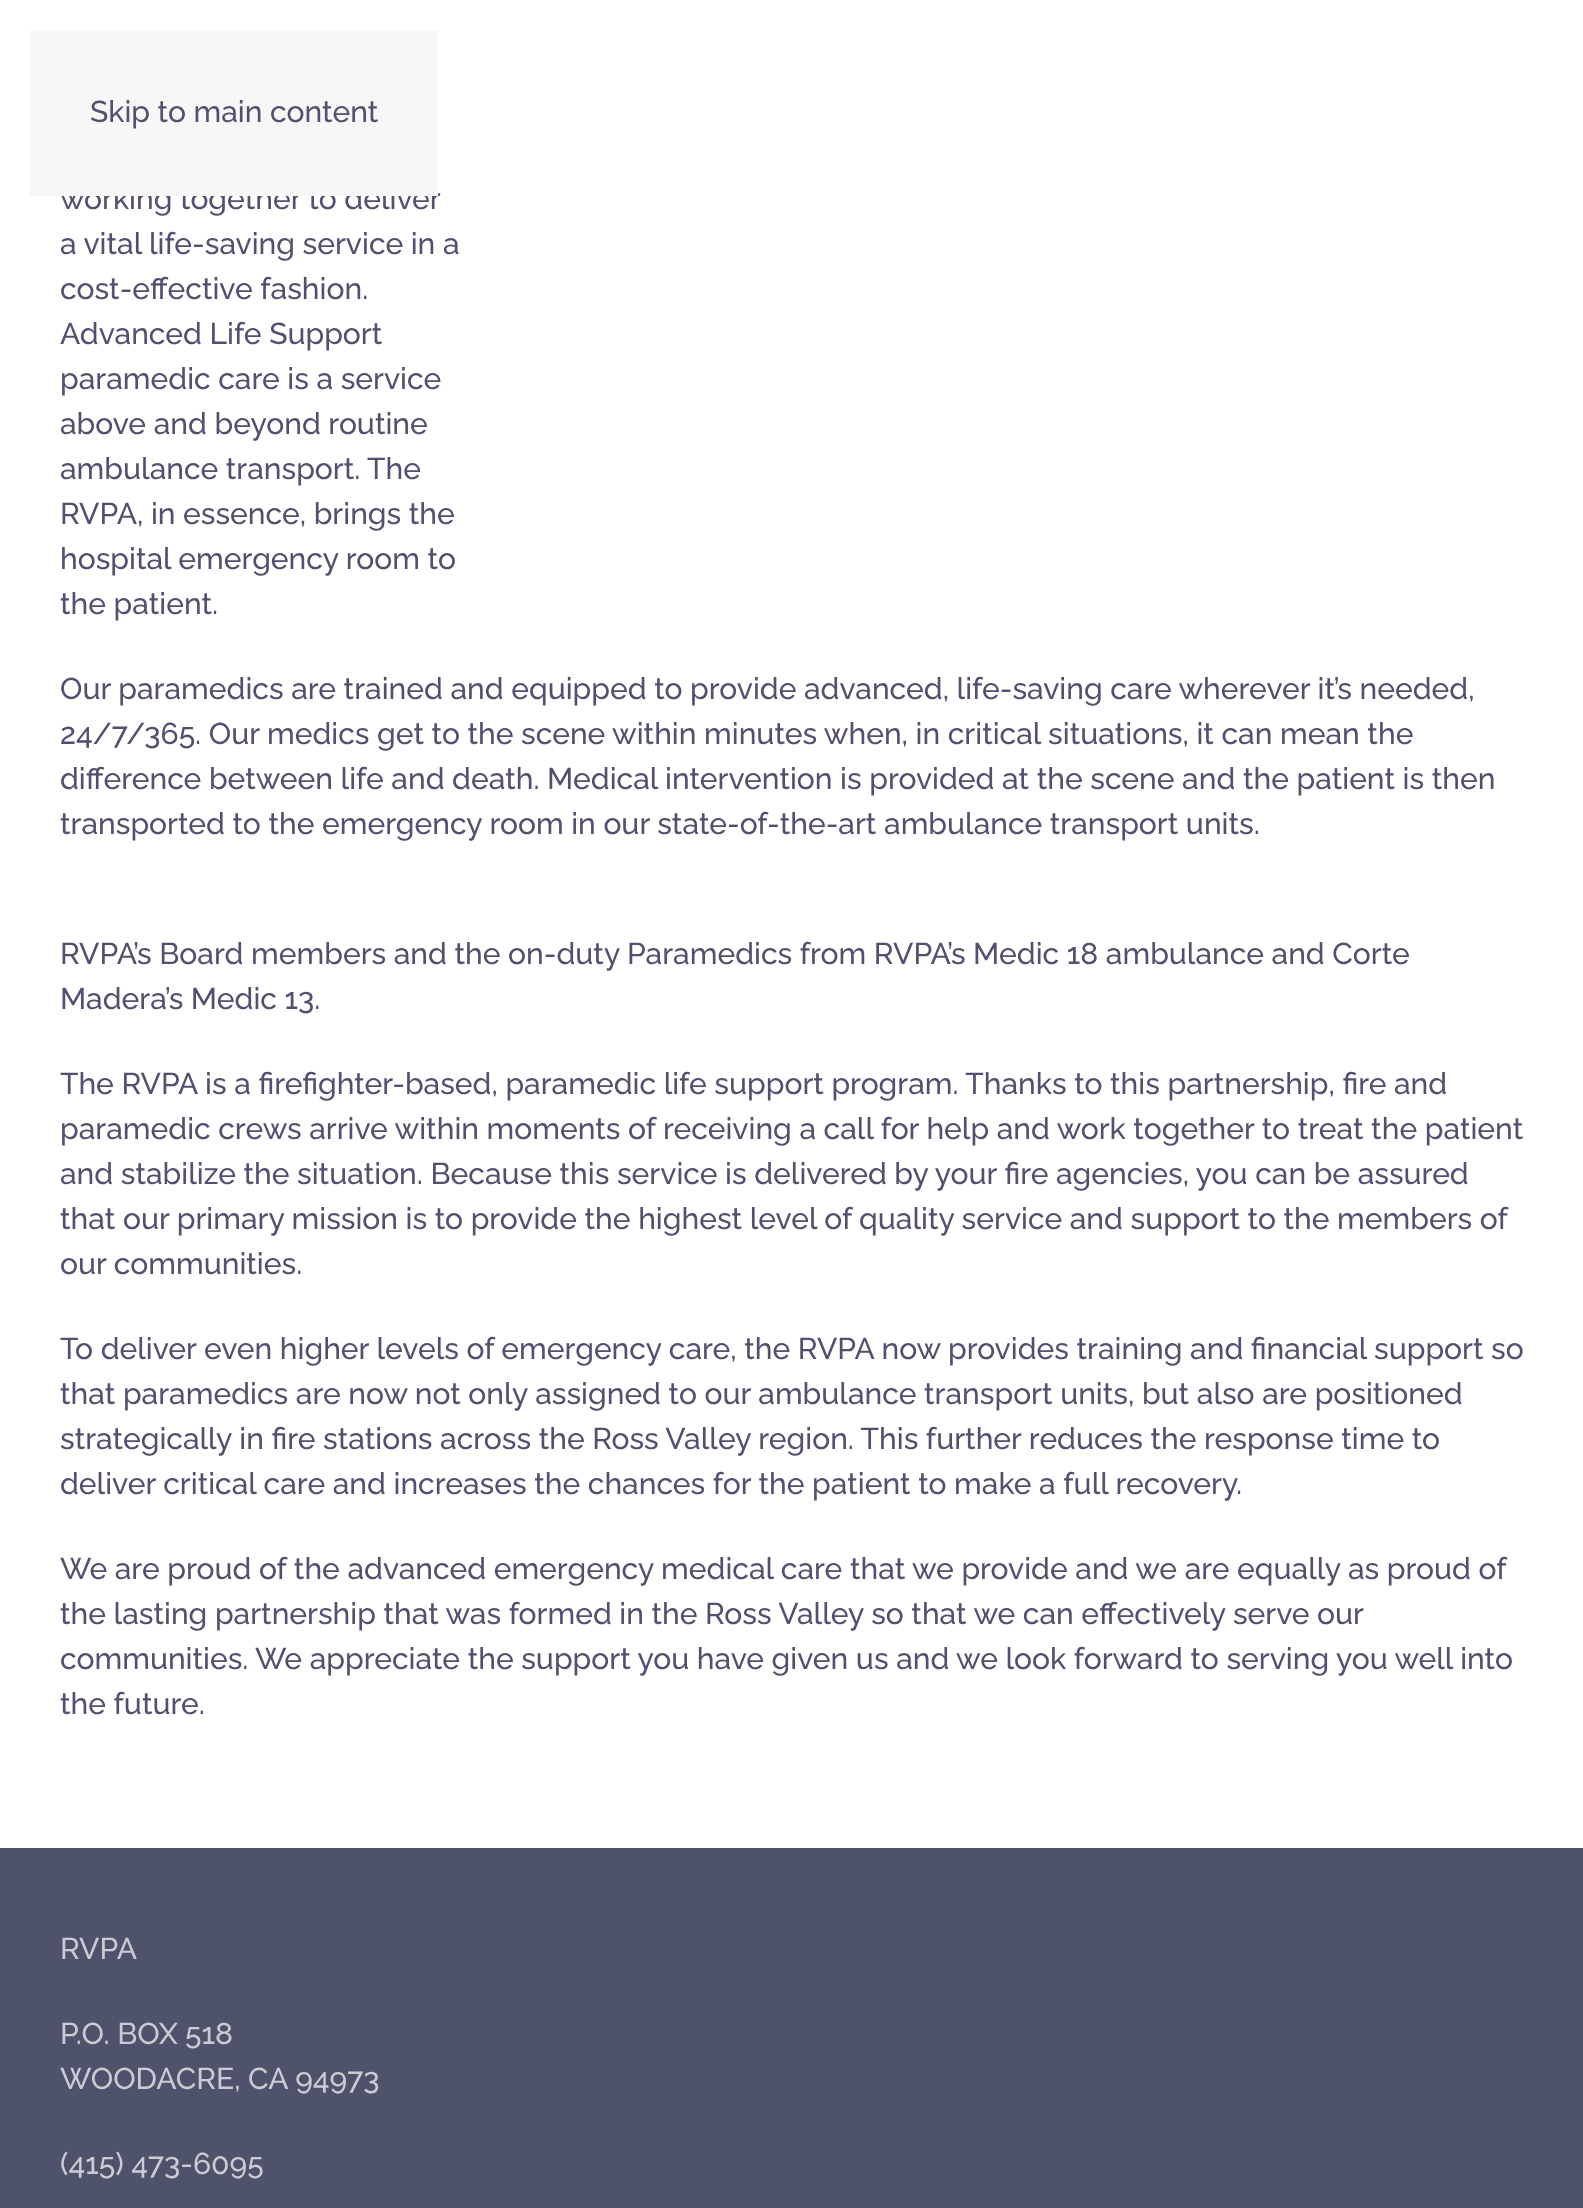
(async () => {
  const canvas = document.querySelector("canvas");
  canvas.width = 1583;
  canvas.height = 2208;
  const ctx = canvas.getContext("2d");
  ctx.miterLimit = 4;
  ctx.fontKerning = "normal";

  ctx.fillStyle = "#ffffff";
  ctx.fillRect(0, 0, 1583, 2208);
  ctx.fillStyle = "#4e536b";
  ctx.fillRect(0, 1848, 1583, 360);
  ctx.font = "100 30px Raleway";
  ctx.fillStyle = "#515070";
  ctx.fillText("working together to deliver", 60, 209);
  ctx.fillStyle = "#f7f7f7";
  ctx.fillRect(30, 30, 408, 166);
  ctx.fillStyle = "#515070";
  for (const [text, x, y] of [
    ["Skip to main content", 90, 122],
    ["a vital life-saving service in a", 60, 254],
    ["cost-effective fashion.", 60, 299],
    ["Advanced Life Support", 60, 344],
    ["paramedic care is a service", 60, 389],
    ["above and beyond routine", 60, 434],
    ["ambulance transport. The", 60, 479],
    ["RVPA, in essence, brings the", 60, 524],
    ["hospital emergency room to", 60, 569],
    ["the patient.", 60, 614],
    ["Our paramedics are trained and equipped to provide advanced, life-saving care wherever it’s needed,", 60, 699],
    ["24/7/365. Our medics get to the scene within minutes when, in critical situations, it can mean the", 60, 744],
    ["difference between life and death. Medical intervention is provided at the scene and the patient is then", 60, 789],
    ["transported to the emergency room in our state-of-the-art ambulance transport units.", 60, 834],
    ["RVPA’s Board members and the on-duty Paramedics from RVPA’s Medic 18 ambulance and Corte", 60, 964],
    ["Madera’s Medic 13.", 60, 1009],
    ["The RVPA is a firefighter-based, paramedic life support program. Thanks to this partnership, fire and", 60, 1094],
    ["paramedic crews arrive within moments of receiving a call for help and work together to treat the patient", 60, 1139],
    ["and stabilize the situation. Because this service is delivered by your fire agencies, you can be assured", 60, 1184],
    ["that our primary mission is to provide the highest level of quality service and support to the members of", 60, 1229],
    ["our communities.", 60, 1274],
    ["To deliver even higher levels of emergency care, the RVPA now provides training and financial support so", 60, 1359],
    ["that paramedics are now not only assigned to our ambulance transport units, but also are positioned", 60, 1404],
    ["strategically in fire stations across the Ross Valley region. This further reduces the response time to", 60, 1449],
    ["deliver critical care and increases the chances for the patient to make a full recovery.", 60, 1494],
    ["We are proud of the advanced emergency medical care that we provide and we are equally as proud of", 60, 1579],
    ["the lasting partnership that was formed in the Ross Valley so that we can effectively serve our", 60, 1624],
    ["communities. We appreciate the support you have given us and we look forward to serving you well into", 60, 1669],
    ["the future.", 60, 1714],
  ]) {
    ctx.fillText(text, x, y);
  }
  ctx.fillStyle = "#cacbd3";
  for (const [text, x, y] of [
    ["RVPA", 60, 1959],
    ["P.O. BOX 518", 60, 2044],
    ["WOODACRE, CA 94973", 60, 2089],
    ["(415) 473-6095", 60, 2174],
  ]) {
    ctx.fillText(text, x, y);
  }
})();
